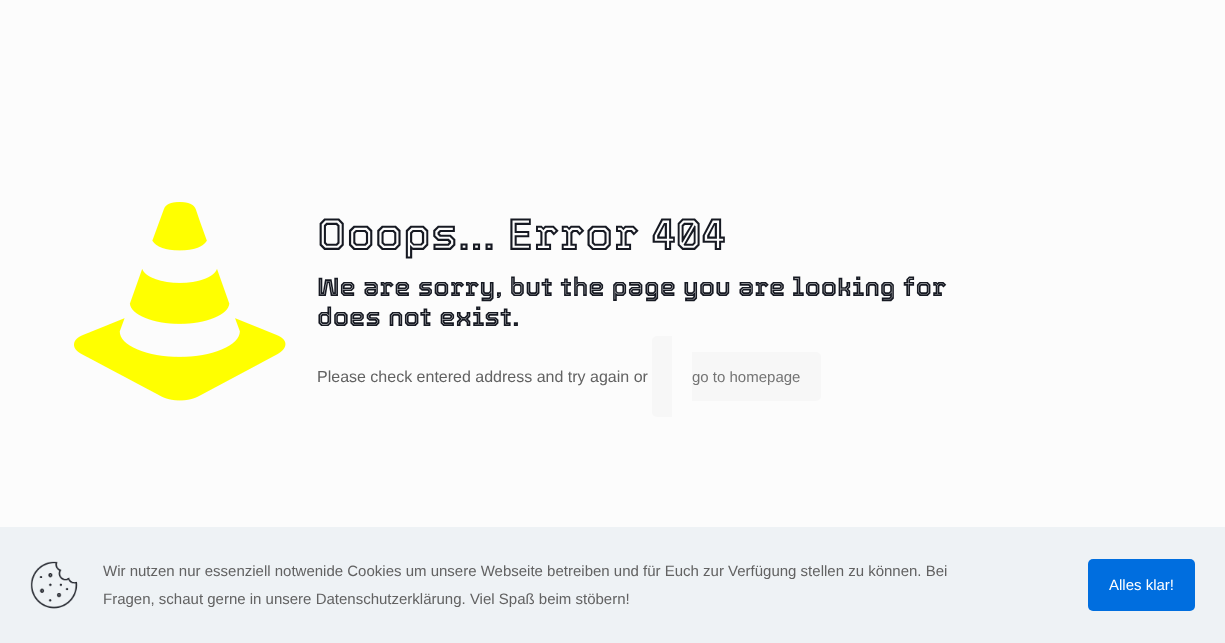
(async () => {
  const canvas = document.querySelector("canvas");
  canvas.width = 1225;
  canvas.height = 643;
  const ctx = canvas.getContext("2d");
  ctx.miterLimit = 4;
  ctx.fontKerning = "normal";
  async function loadImage(src) {
    const img = new Image();
    img.src = src;
    await img.decode();
    return img;
  }

  ctx.fillStyle = "#fcfcfc";
  ctx.fillRect(0, 0, 1225, 643);
  ctx.drawImage(await loadImage("img/1.png"), 74, 202, 212, 199);
  ctx.fillStyle = "#f7f7f7";
  ctx.beginPath();
  ctx.roundRect(652, 336, 20, 81, [5, 0, 0, 5]);
  ctx.fill();
  ctx.beginPath();
  ctx.roundRect(692, 352, 129, 49, [0, 5, 5, 0]);
  ctx.fill();
  ctx.fillStyle = "#eef2f5";
  ctx.fillRect(0, 527, 1225, 116);
  ctx.drawImage(await loadImage("img/2.png"), 30, 561, 48, 48);
  ctx.fillStyle = "#006edf";
  ctx.beginPath();
  ctx.roundRect(1088, 559, 107, 52, 5);
  ctx.fill();
  ctx.font = "500 45px Tourney";
  ctx.fillStyle = "#161922";
  ctx.fillText("Ooops... Error 404", 317, 250);
  ctx.font = "bold 26px Tourney";
  ctx.fillText("We are sorry, but the page you are looking for", 317, 296);
  ctx.fillText("does not exist.", 317, 326);
  ctx.font = "16px Liberation Sans";
  ctx.fillStyle = "#626262";
  ctx.fillText("Please check entered address and try again or", 317, 382);
  ctx.font = "15px Liberation Sans";
  ctx.fillStyle = "#747474";
  ctx.fillText("go to homepage", 692, 382);
  ctx.fillStyle = "#626262";
  ctx.fillText("Wir nutzen nur essenziell notwenide Cookies um unsere Webseite betreiben und für Euch zur Verfügung stellen zu können. Bei", 103, 576);
  ctx.fillText("Fragen, schaut gerne in unsere Datenschutzerklärung. Viel Spaß beim stöbern!", 103, 604);
  ctx.fillStyle = "#ffffff";
  ctx.fillText("Alles klar!", 1109, 590);
})();
